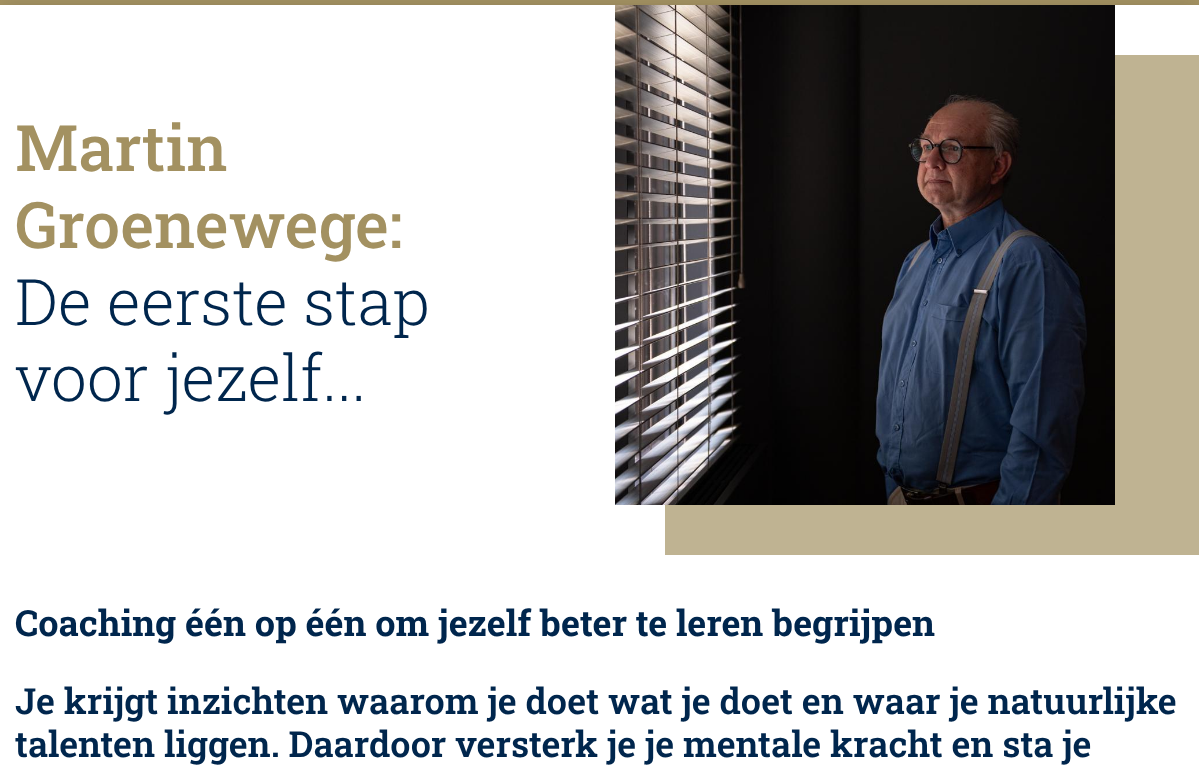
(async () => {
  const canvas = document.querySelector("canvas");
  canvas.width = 1199;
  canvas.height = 779;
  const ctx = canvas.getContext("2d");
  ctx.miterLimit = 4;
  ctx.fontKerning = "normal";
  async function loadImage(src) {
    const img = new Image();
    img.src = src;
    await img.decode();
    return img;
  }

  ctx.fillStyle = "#a39161";
  ctx.fillRect(0, 0, 1199, 779);
  ctx.fillStyle = "rgba(46, 46, 46, 0.15)";
  ctx.filter = "blur(7.5px)";
  ctx.beginPath();
  ctx.roundRect(0, 5, 1199, 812, 15);
  ctx.fill();
  ctx.filter = "none";
  ctx.fillStyle = "#ffffff";
  ctx.fillRect(0, 5, 1199, 774);
  ctx.fillStyle = "#bfb392";
  ctx.fillRect(665, 55, 534, 500);
  ctx.drawImage(await loadImage("img/1.png"), 615, 5, 500, 500);
  ctx.font = "500 64px Roboto Slab";
  ctx.fillStyle = "#a39161";
  ctx.fillText("Martin", 15, 171);
  ctx.fillText("Groenewege:", 15, 248);
  ctx.font = "300 64px Roboto Slab";
  ctx.fillStyle = "#00264d";
  ctx.fillText("De eerste stap", 15, 325);
  ctx.fillText("voor jezelf...", 15, 401);
  ctx.font = "bold 36px Roboto Slab";
  ctx.fillText("Coaching één op één om jezelf beter te leren begrijpen", 15, 636);
  ctx.font = "600 36px Roboto Slab";
  ctx.fillText("Je krijgt inzichten waarom je doet wat je doet en waar je natuurlijke", 15, 714);
  ctx.fillText("talenten liggen. Daardoor versterk je je mentale kracht en sta je", 15, 757);
})();
